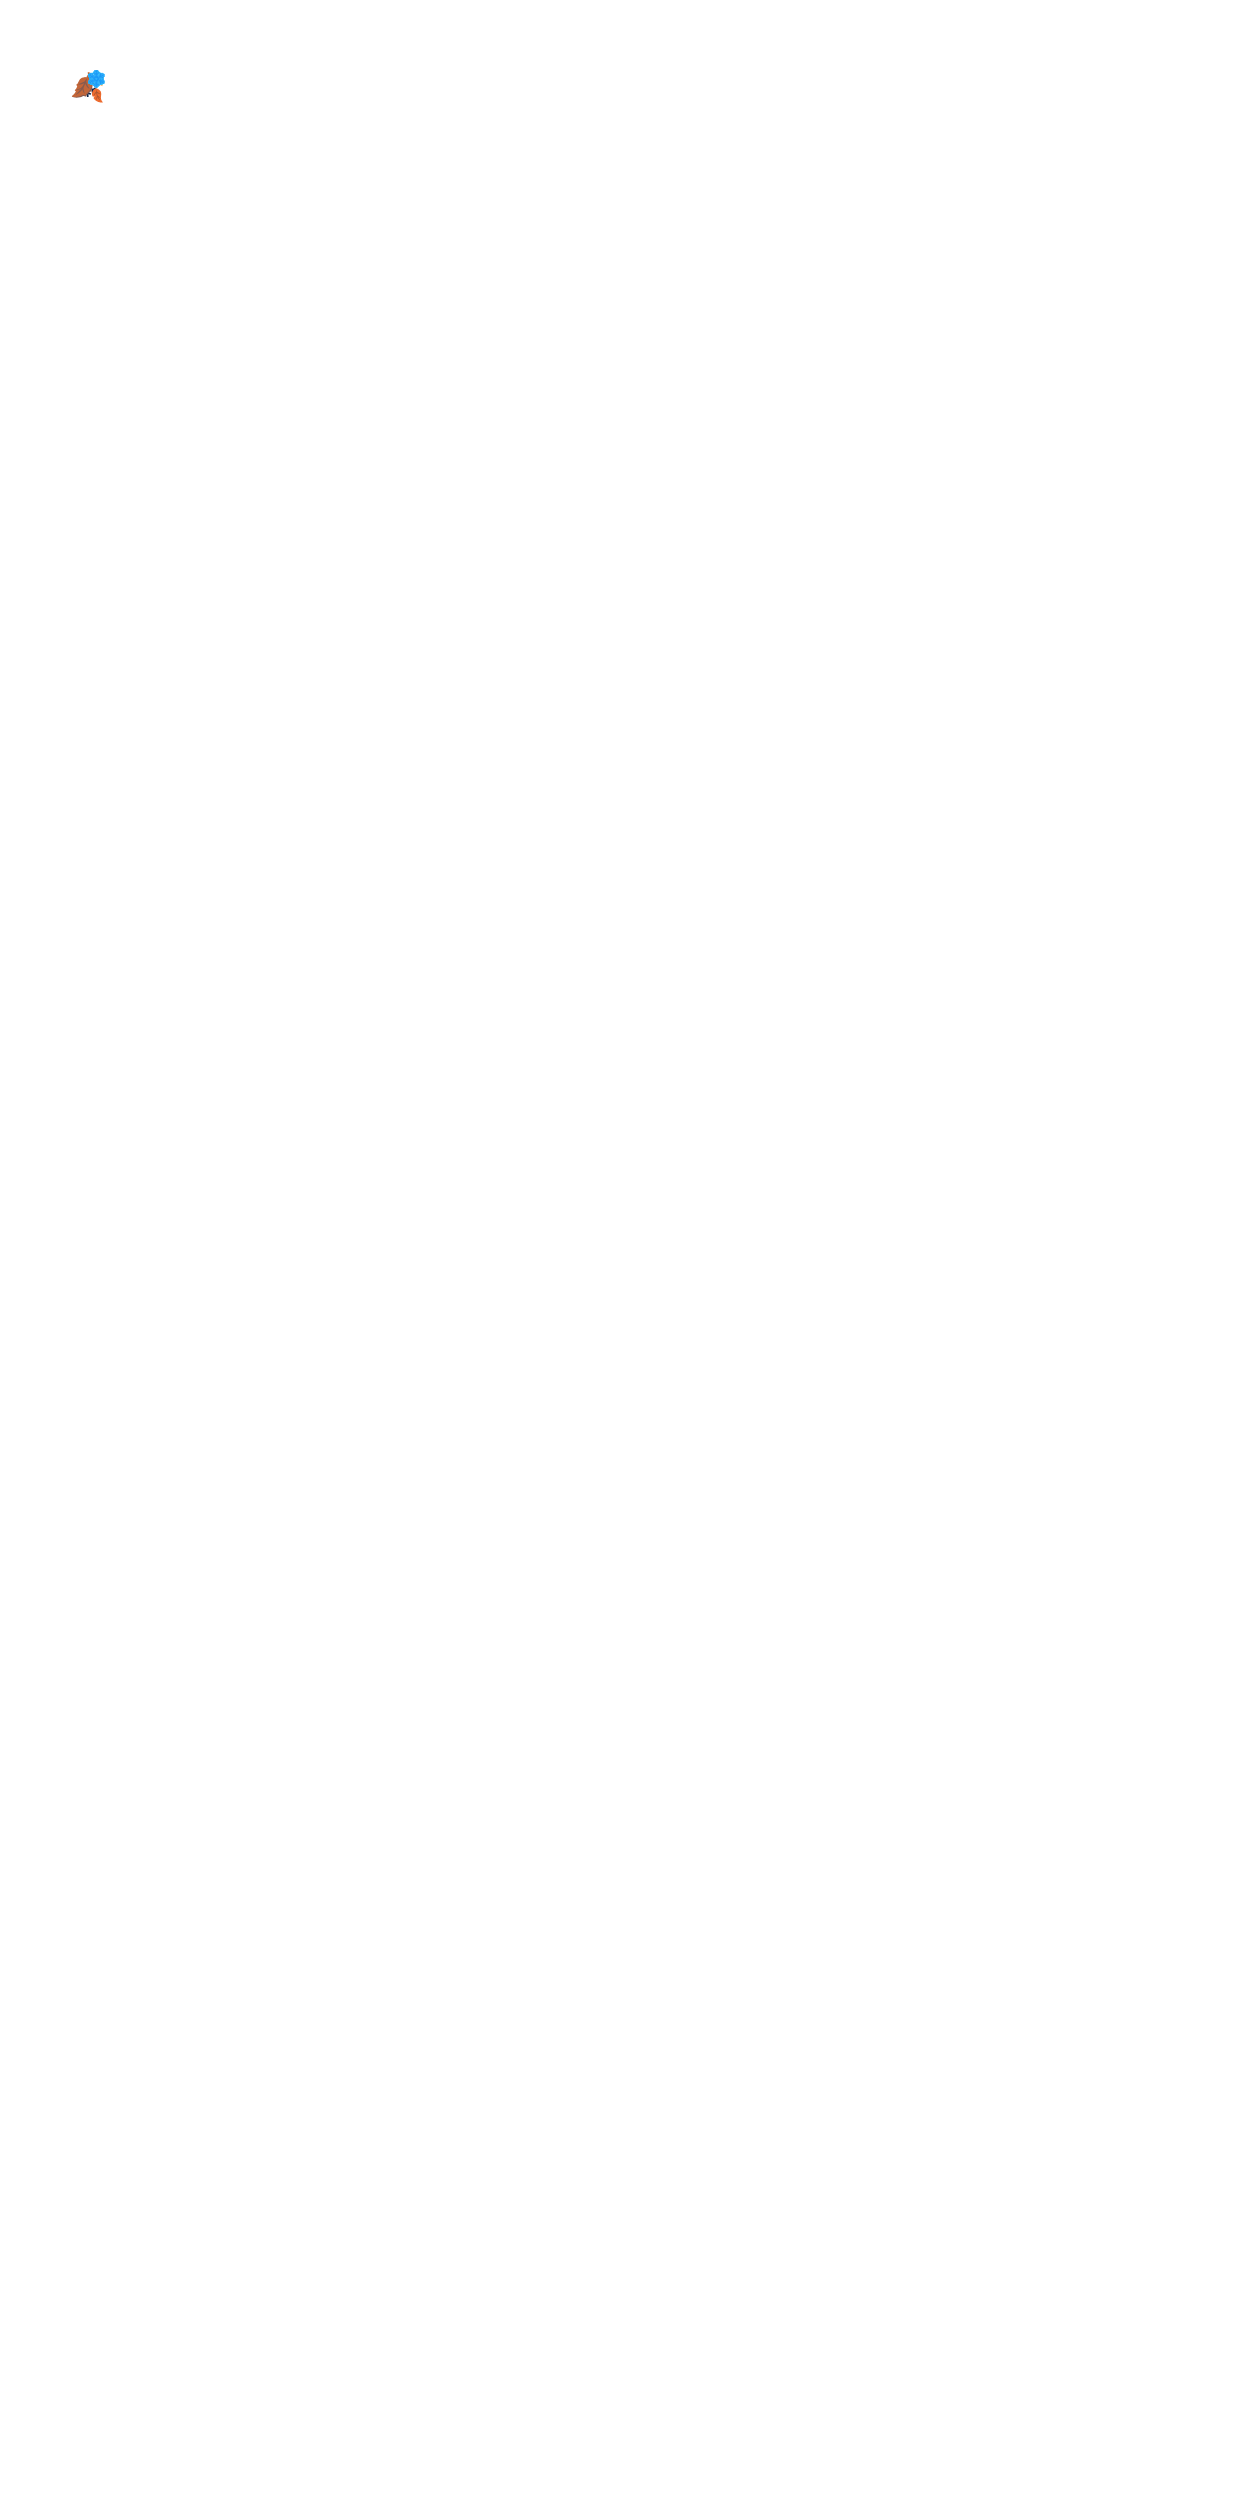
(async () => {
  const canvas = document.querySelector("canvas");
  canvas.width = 1251;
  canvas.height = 2518;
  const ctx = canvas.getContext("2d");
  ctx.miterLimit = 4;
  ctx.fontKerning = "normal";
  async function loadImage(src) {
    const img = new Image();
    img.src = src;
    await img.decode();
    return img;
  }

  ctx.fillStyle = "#ffffff";
  ctx.fillRect(0, 0, 1251, 2518);
  ctx.font = "28px DejaVu Sans";
  ctx.fillStyle = "#0d254a";
  ctx.fillText("❄", 76, 97);
  ctx.font = "28px Noto Color Emoji";
  ctx.fillText("🍂", 70, 97);
  ctx.drawImage(await loadImage("img/1.png"), 88, 70, 17, 18);
  ctx.drawImage(await loadImage("img/2.png"), 88, 70, 17, 18);
  ctx.drawImage(await loadImage("img/3.png"), 88, 70, 17, 18);
  ctx.drawImage(await loadImage("img/4.png"), 88, 70, 17, 18);
  ctx.drawImage(await loadImage("img/5.png"), 88, 70, 17, 18);
  ctx.drawImage(await loadImage("img/6.png"), 88, 70, 17, 18);
  ctx.drawImage(await loadImage("img/7.png"), 88, 70, 17, 18);
  ctx.drawImage(await loadImage("img/8.png"), 88, 70, 17, 18);
  ctx.drawImage(await loadImage("img/9.png"), 88, 70, 17, 18);
  ctx.drawImage(await loadImage("img/10.png"), 88, 70, 17, 18);
  ctx.drawImage(await loadImage("img/11.png"), 88, 70, 17, 18);
  ctx.drawImage(await loadImage("img/12.png"), 88, 70, 17, 18);
  ctx.drawImage(await loadImage("img/13.png"), 88, 70, 17, 18);
  ctx.drawImage(await loadImage("img/14.png"), 88, 70, 17, 18);
  ctx.drawImage(await loadImage("img/15.png"), 88, 70, 17, 18);
  ctx.drawImage(await loadImage("img/16.png"), 88, 70, 17, 15);
  ctx.drawImage(await loadImage("img/17.png"), 94, 70, 11, 15);
  ctx.drawImage(await loadImage("img/18.png"), 104, 75, 1, 9);
  ctx.drawImage(await loadImage("img/19.png"), 104, 75, 1, 2);
})();
